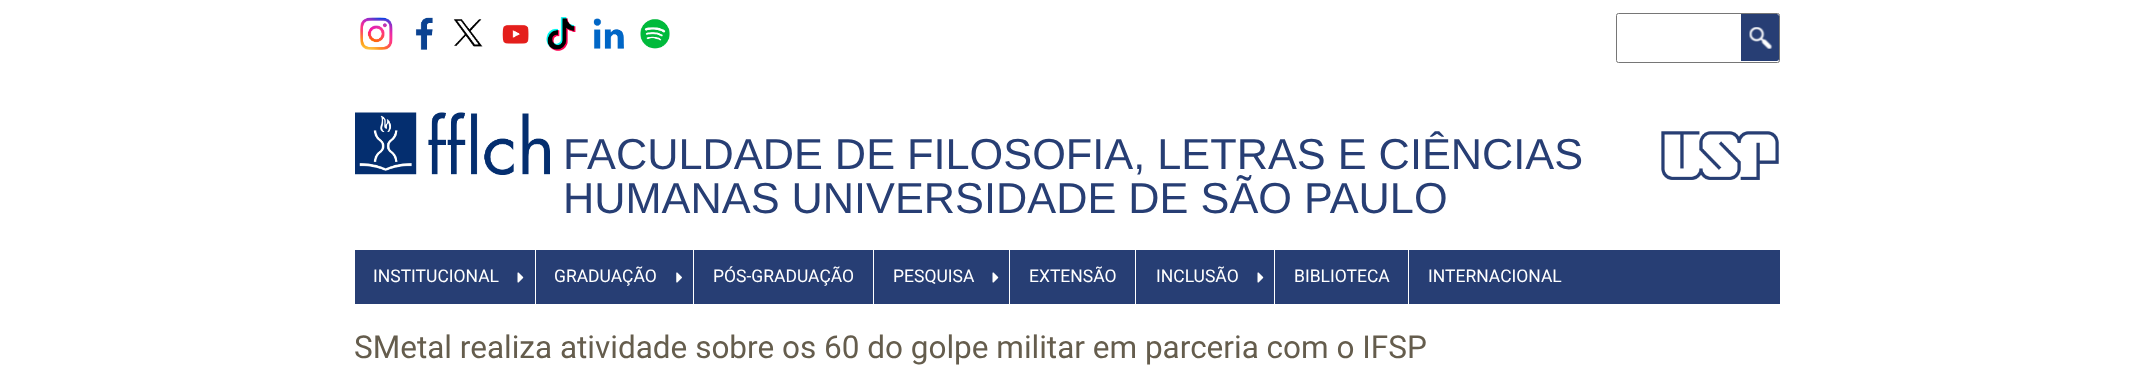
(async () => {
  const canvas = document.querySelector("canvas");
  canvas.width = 2133;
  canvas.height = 390;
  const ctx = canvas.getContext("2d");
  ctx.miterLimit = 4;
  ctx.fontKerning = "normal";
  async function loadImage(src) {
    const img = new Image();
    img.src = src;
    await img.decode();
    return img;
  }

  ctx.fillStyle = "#ffffff";
  ctx.fillRect(0, 0, 2133, 390);
  ctx.drawImage(await loadImage("img/1.png"), 360, 17, 33, 33);
  ctx.drawImage(await loadImage("img/2.png"), 415, 17, 18, 33);
  ctx.drawImage(await loadImage("img/3.png"), 453, 19, 30, 28);
  ctx.drawImage(await loadImage("img/4.png"), 502, 24, 27, 20);
  ctx.drawImage(await loadImage("img/5.png"), 546, 17, 30, 34);
  ctx.drawImage(await loadImage("img/6.png"), 593, 18, 31, 31);
  ctx.drawImage(await loadImage("img/7.png"), 640, 19, 30, 30);
  ctx.beginPath();
  ctx.roundRect(1616.5, 13.5, 163, 49, 2);
  ctx.strokeStyle = "#767676";
  ctx.stroke();
  ctx.fillStyle = "#273e74";
  ctx.beginPath();
  ctx.roundRect(1741, 14, 38, 47, [0, 2.5, 2.5, 0]);
  ctx.fill();
  ctx.drawImage(await loadImage("img/8.png"), 1749, 27, 24, 22);
  ctx.drawImage(await loadImage("img/9.png"), 355, 112, 195, 63);
  ctx.drawImage(await loadImage("img/10.png"), 1661, 131, 118, 49);
  ctx.fillRect(355, 250, 1425, 54);
  ctx.fillStyle = "#ffffff";
  ctx.fillRect(535, 250, 1, 54);
  ctx.drawImage(await loadImage("img/11.png"), 517, 272, 7, 11);
  ctx.fillRect(693, 250, 1, 54);
  ctx.drawImage(await loadImage("img/12.png"), 676, 272, 6, 11);
  ctx.fillRect(873, 250, 1, 54);
  ctx.fillRect(1009, 250, 1, 54);
  ctx.drawImage(await loadImage("img/11.png"), 992, 272, 7, 11);
  ctx.fillRect(1135, 250, 1, 54);
  ctx.fillRect(1274, 250, 1, 54);
  ctx.drawImage(await loadImage("img/11.png"), 1257, 272, 7, 11);
  ctx.fillRect(1408, 250, 1, 54);
  ctx.font = "43.3px Liberation Sans";
  ctx.fillStyle = "#273e74";
  ctx.fillText("FACULDADE DE FILOSOFIA, LETRAS E CIÊNCIAS", 563, 169);
  ctx.fillText("HUMANAS UNIVERSIDADE DE SÃO PAULO", 563, 213);
  ctx.font = "17.5px Roboto";
  ctx.fillStyle = "#ffffff";
  for (const [text, x, y] of [
    ["INSTITUCIONAL", 373, 282],
    ["GRADUAÇÃO", 554, 282],
    ["PÓS-GRADUAÇÃO", 713, 282],
    ["PESQUISA", 893, 282],
    ["EXTENSÃO", 1029, 282],
    ["INCLUSÃO", 1156, 282],
    ["BIBLIOTECA", 1294, 282],
    ["INTERNACIONAL", 1428, 282],
  ]) {
    ctx.fillText(text, x, y);
  }
  ctx.font = "31.5px Roboto";
  ctx.fillStyle = "#655d4d";
  ctx.fillText("SMetal realiza atividade sobre os 60 do golpe militar em parceria com o IFSP", 354, 358);
})();
